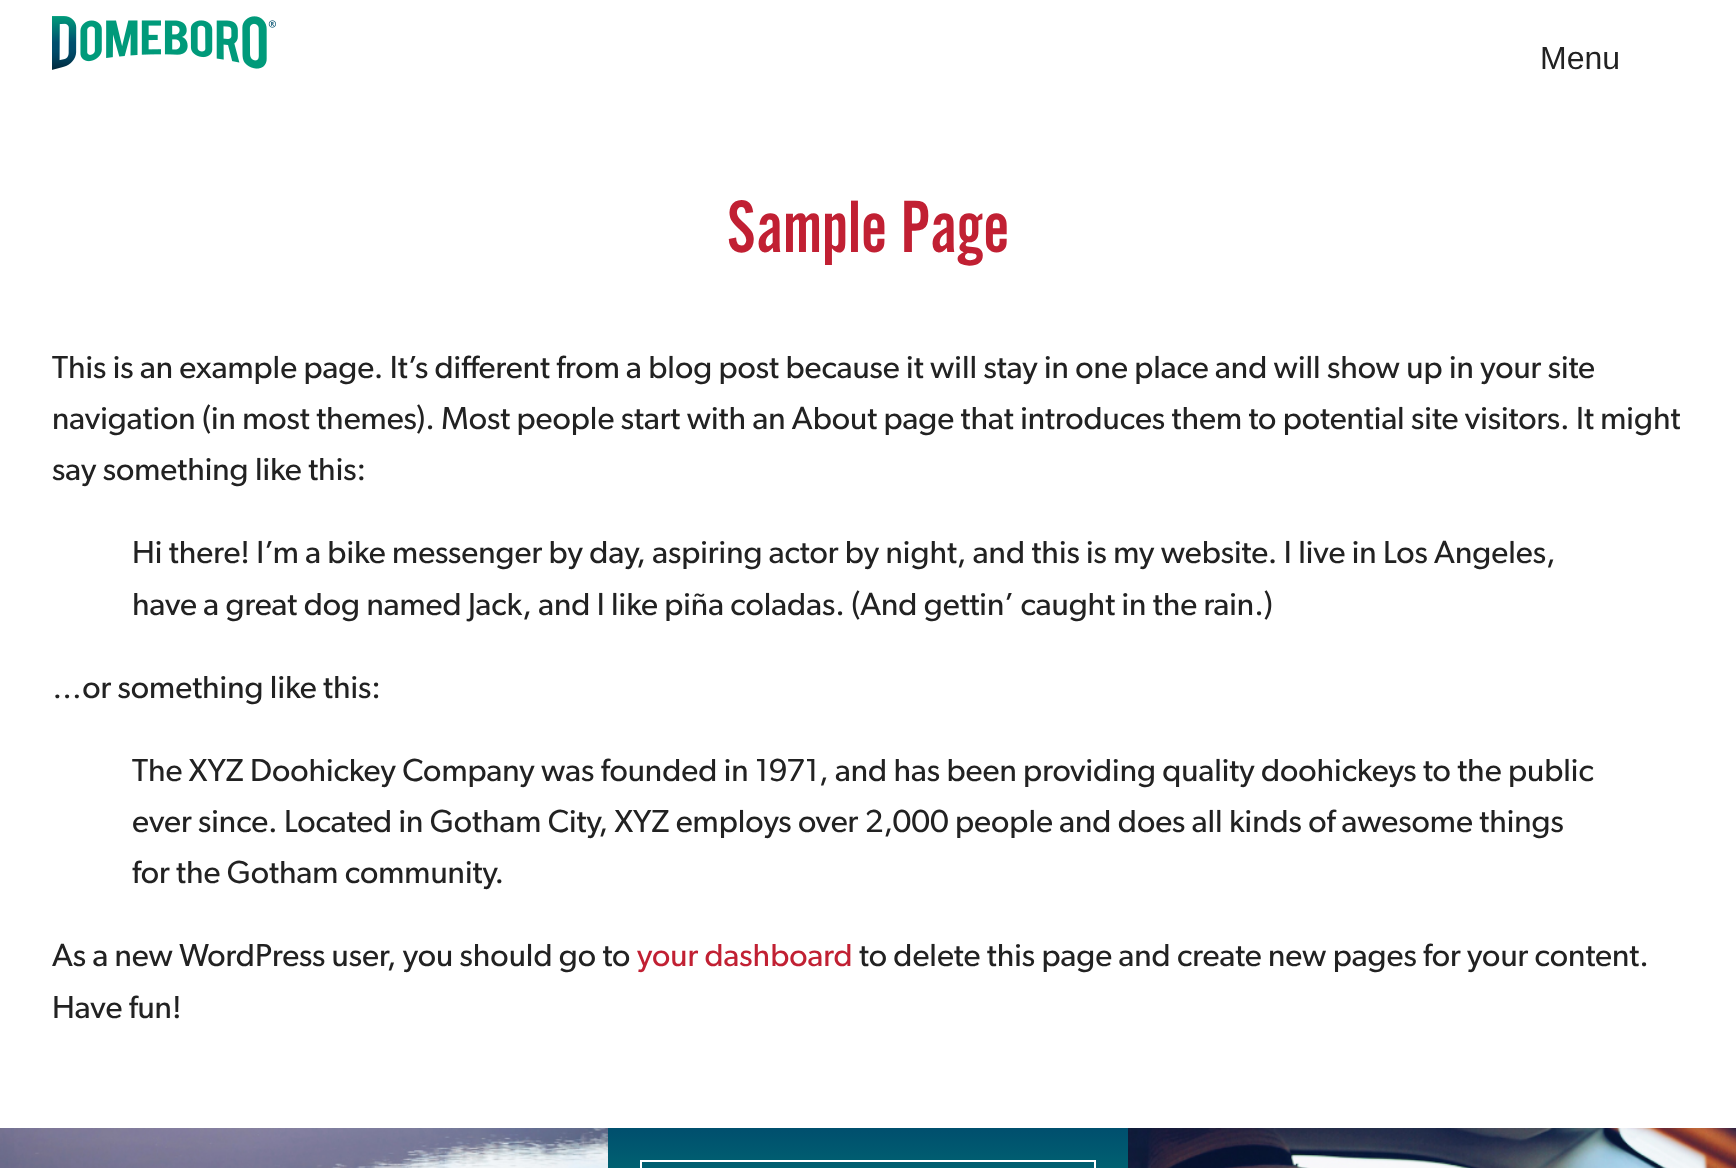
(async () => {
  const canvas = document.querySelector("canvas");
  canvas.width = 1736;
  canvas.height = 1168;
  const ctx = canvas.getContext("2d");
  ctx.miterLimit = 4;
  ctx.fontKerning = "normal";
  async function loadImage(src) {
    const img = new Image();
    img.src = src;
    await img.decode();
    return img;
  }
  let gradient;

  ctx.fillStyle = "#ffffff";
  ctx.fillRect(0, 0, 1736, 1168);
  ctx.drawImage(await loadImage("img/1.png"), 52, 16, 224, 54);
  ctx.drawImage(await loadImage("img/2.png"), 0, 1128, 608, 40);
  gradient = ctx.createLinearGradient(868, 1128, 868, 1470);
  gradient.addColorStop(0, "#004f6e");
  gradient.addColorStop(0.5, "#009a7a");
  gradient.addColorStop(1, "#004f6e");
  ctx.fillStyle = gradient;
  ctx.fillRect(608, 1128, 520, 40);
  ctx.strokeStyle = "#ffffff";
  ctx.lineWidth = 2;
  ctx.strokeRect(641, 1161, 454, 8);
  ctx.drawImage(await loadImage("img/3.png"), 1128, 1128, 608, 40);
  ctx.font = "32px Liberation Sans";
  ctx.fillStyle = "#222222";
  ctx.fillText("Menu", 1540, 69);
  ctx.font = "77px 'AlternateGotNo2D'";
  ctx.fillStyle = "#c12033";
  ctx.fillText("Sample Page", 727, 252);
  ctx.font = "32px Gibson";
  ctx.fillStyle = "#222222";
  for (const [text, x, y] of [
    ["This is an example page. It’s different from a blog post because it will stay in one place and will show up in your site", 52, 378],
    ["navigation (in most themes). Most people start with an About page that introduces them to potential site visitors. It might", 52, 429],
    ["say something like this:", 52, 480],
    ["Hi there! I’m a bike messenger by day, aspiring actor by night, and this is my website. I live in Los Angeles,", 132, 563],
    ["have a great dog named Jack, and I like piña coladas. (And gettin’ caught in the rain.)", 132, 615],
    ["…or something like this:", 52, 698],
    ["The XYZ Doohickey Company was founded in 1971, and has been providing quality doohickeys to the public", 132, 781],
    ["ever since. Located in Gotham City, XYZ employs over 2,000 people and does all kinds of awesome things", 132, 832],
    ["for the Gotham community.", 132, 883],
    ["As a new WordPress user, you should go to", 52, 966],
  ]) {
    ctx.fillText(text, x, y);
  }
  ctx.fillStyle = "#c12033";
  ctx.fillText("your dashboard", 637, 966);
  ctx.fillStyle = "#222222";
  ctx.fillText("to delete this page and create new pages for your content.", 859, 966);
  ctx.fillText("Have fun!", 52, 1018);
})();
